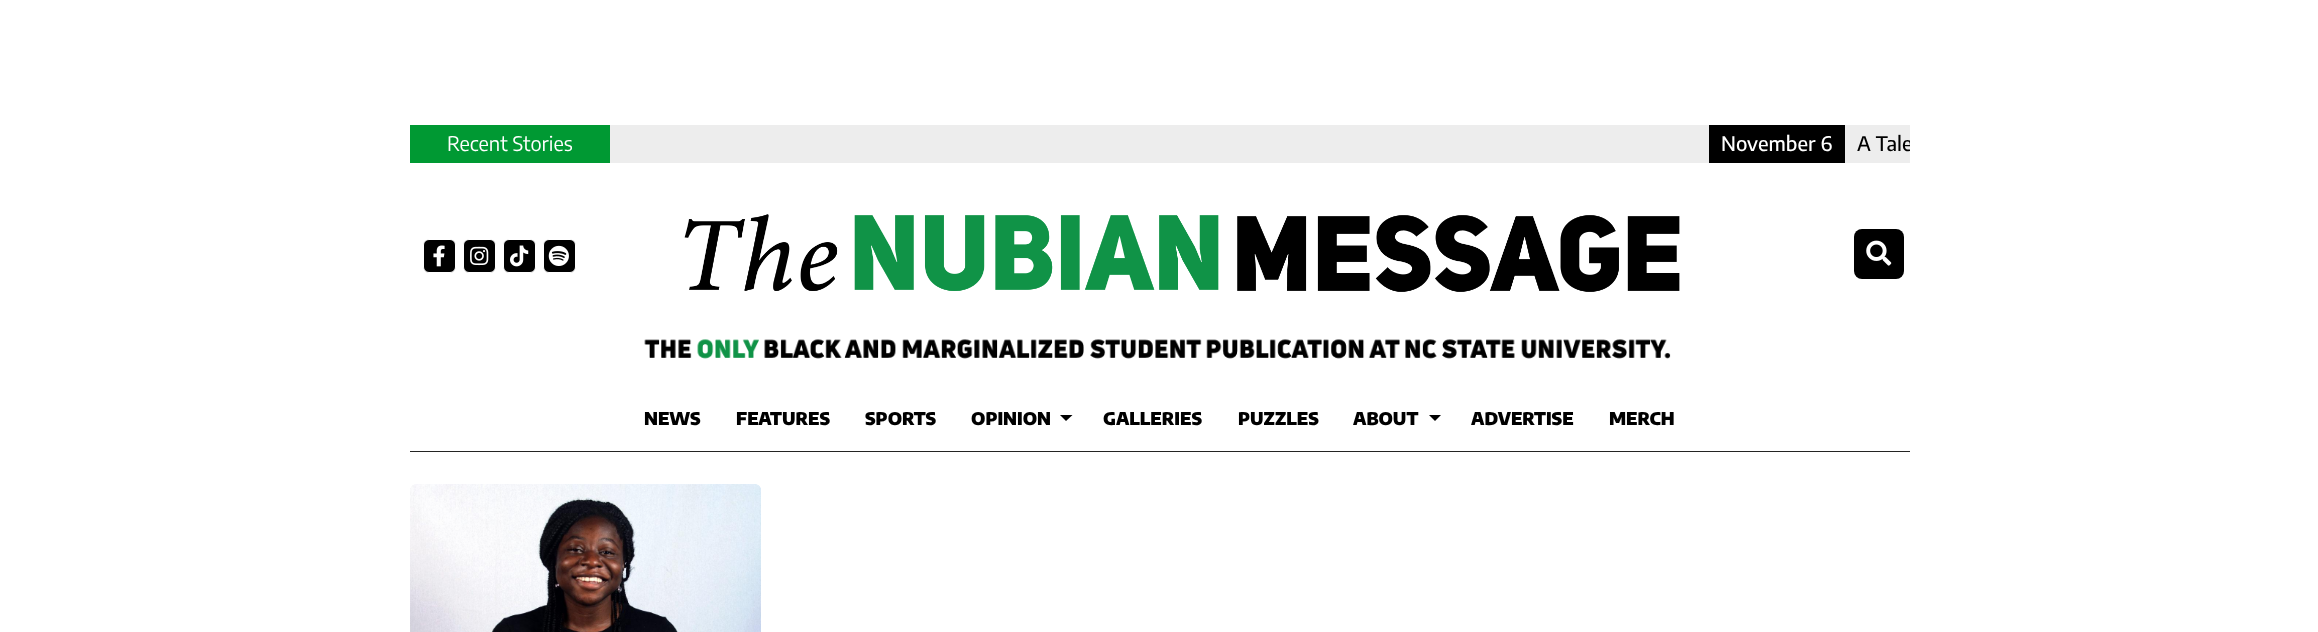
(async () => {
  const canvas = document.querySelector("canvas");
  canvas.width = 2318;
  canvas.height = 632;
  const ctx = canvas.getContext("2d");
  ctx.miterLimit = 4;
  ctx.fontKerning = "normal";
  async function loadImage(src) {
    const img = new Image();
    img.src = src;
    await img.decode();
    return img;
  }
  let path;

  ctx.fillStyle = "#ffffff";
  ctx.fillRect(0, 0, 2318, 632);
  for (const [x, y, w, h, color] of [
    [610, 125, 1300, 38, "#ededed"],
    [410, 125, 200, 38, "#009933"],
    [1709, 125, 136, 38, "#000000"],
  ]) {
    ctx.fillStyle = color;
    ctx.fillRect(x, y, w, h);
  }
  ctx.beginPath();
  ctx.roundRect(423.5, 239.5, 32, 33, 5.5);
  ctx.fill();
  ctx.strokeStyle = "#ffffff";
  ctx.stroke();
  ctx.drawImage(await loadImage("img/1.png"), 433, 245, 12, 22);
  ctx.beginPath();
  ctx.roundRect(463.5, 239.5, 32, 33, 5.5);
  ctx.fill();
  ctx.stroke();
  ctx.drawImage(await loadImage("img/2.png"), 470, 246, 19, 20);
  ctx.beginPath();
  ctx.roundRect(503.5, 239.5, 32, 33, 5.5);
  ctx.fill();
  ctx.stroke();
  ctx.drawImage(await loadImage("img/3.png"), 510, 245, 19, 22);
  ctx.beginPath();
  ctx.roundRect(543.5, 239.5, 32, 33, 5.5);
  ctx.fill();
  ctx.stroke();
  ctx.drawImage(await loadImage("img/4.png"), 548, 245, 21, 21);
  ctx.drawImage(await loadImage("img/5.png"), 684, 214, 996, 78);
  ctx.beginPath();
  ctx.roundRect(1854, 229, 50, 50, 8);
  ctx.fill();
  ctx.drawImage(await loadImage("img/6.png"), 1866, 240, 26, 26);
  ctx.drawImage(await loadImage("img/7.png"), 644, 339, 1027, 20);
  path = new Path2D("M1060 415H1072.5L1066 421Z");
  ctx.fill(path);
  path = new Path2D("M1429 415H1441L1435 421Z");
  ctx.fill(path);
  ctx.fillStyle = "#242423";
  ctx.fillRect(410, 451, 1500, 1);
  ctx.drawImage(await loadImage("img/8.png"), 410, 484, 351, 148);
  ctx.font = "20px Encode Sans Condensed";
  ctx.fillStyle = "#ffffff";
  ctx.fillText("Recent Stories", 447, 151);
  ctx.font = "500 20px Encode Sans Condensed";
  ctx.fillText("November 6", 1721, 151);
  ctx.save();
  ctx.beginPath();
  ctx.rect(410, 125, 1500, 38);
  ctx.clip();
  ctx.fillStyle = "#000000";
  ctx.fillText("A Tale", 1857, 151);
  ctx.restore();
  ctx.font = "900 17.5px Encode Sans Condensed";
  ctx.fillStyle = "#000000";
  for (const [text, x, y] of [
    ["NEWS", 644, 425],
    ["FEATURES", 736, 425],
    ["SPORTS", 865, 425],
    ["OPINION", 971, 425],
    ["GALLERIES", 1103, 425],
    ["PUZZLES", 1238, 425],
    ["ABOUT", 1353, 425],
    ["ADVERTISE", 1471, 425],
    ["MERCH", 1609, 425],
  ]) {
    ctx.fillText(text, x, y);
  }
})();
